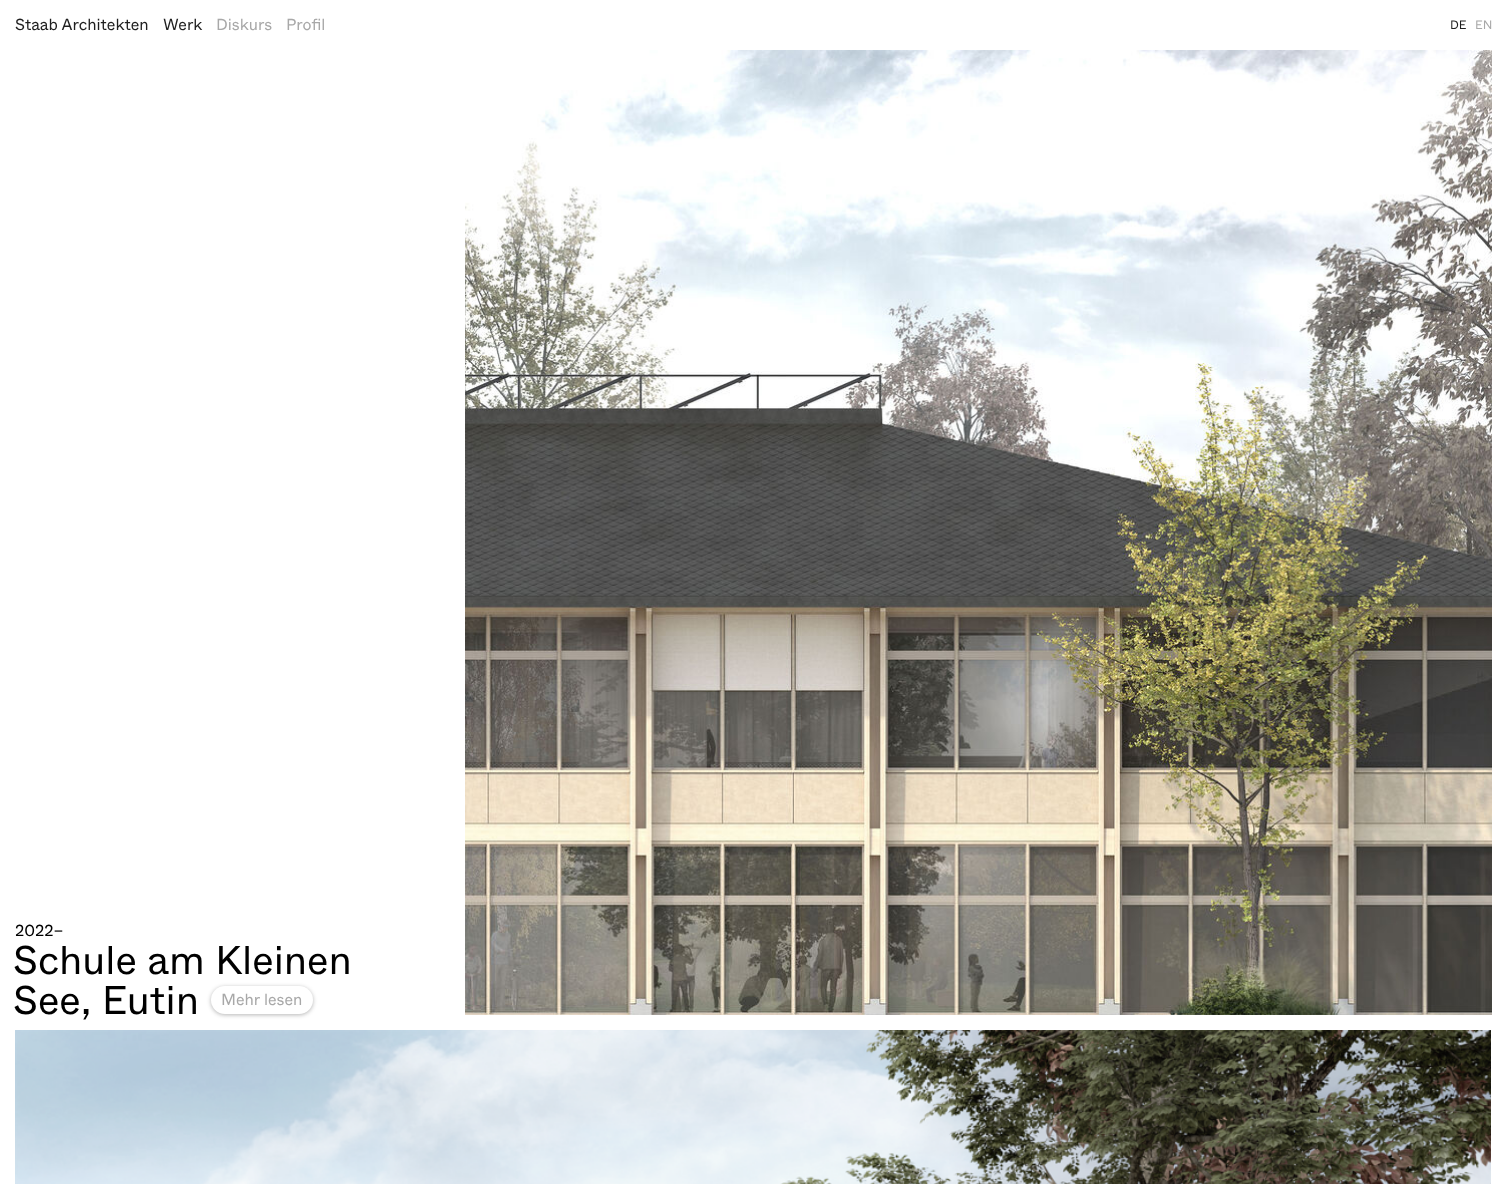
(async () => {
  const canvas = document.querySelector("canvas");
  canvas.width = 1507;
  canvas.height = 1184;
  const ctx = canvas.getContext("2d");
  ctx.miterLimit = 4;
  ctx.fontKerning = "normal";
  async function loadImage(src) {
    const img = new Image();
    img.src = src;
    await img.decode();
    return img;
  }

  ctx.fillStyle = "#ffffff";
  ctx.fillRect(0, 0, 1507, 1184);
  ctx.fillStyle = "rgba(31, 31, 31, 0.33)";
  ctx.filter = "blur(2px)";
  ctx.beginPath();
  ctx.roundRect(211, 987, 102, 28, 14);
  ctx.fill();
  ctx.filter = "none";
  ctx.fillStyle = "#ffffff";
  ctx.beginPath();
  ctx.roundRect(211, 986, 102, 28, 14);
  ctx.fill();
  ctx.drawImage(await loadImage("img/1.png"), 465, 50, 1027, 965);
  ctx.drawImage(await loadImage("img/2.png"), 15, 1030, 1476, 154);
  ctx.font = "300 16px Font";
  ctx.fillStyle = "#1f1f1f";
  ctx.fillText("Staab Architekten", 15, 30);
  ctx.fillText("Werk", 163, 30);
  ctx.fillStyle = "#a8a8a8";
  ctx.fillText("Diskurs", 216, 30);
  ctx.fillText("Profil", 286, 30);
  ctx.font = "300 12px Font";
  ctx.fillStyle = "#1f1f1f";
  ctx.fillText("DE", 1450, 29);
  ctx.fillStyle = "#a8a8a8";
  ctx.fillText("EN", 1475, 29);
  ctx.font = "300 16px Font";
  ctx.fillStyle = "#000000";
  ctx.fillText("2022–", 15, 936);
  ctx.font = "300 40px Font";
  ctx.fillText("Schule am Kleinen", 13, 974);
  ctx.fillText("See, Eutin", 13, 1014);
  ctx.font = "300 16px Font";
  ctx.fillStyle = "#a8a8a8";
  ctx.fillText("Mehr lesen", 221, 1005);
})();
